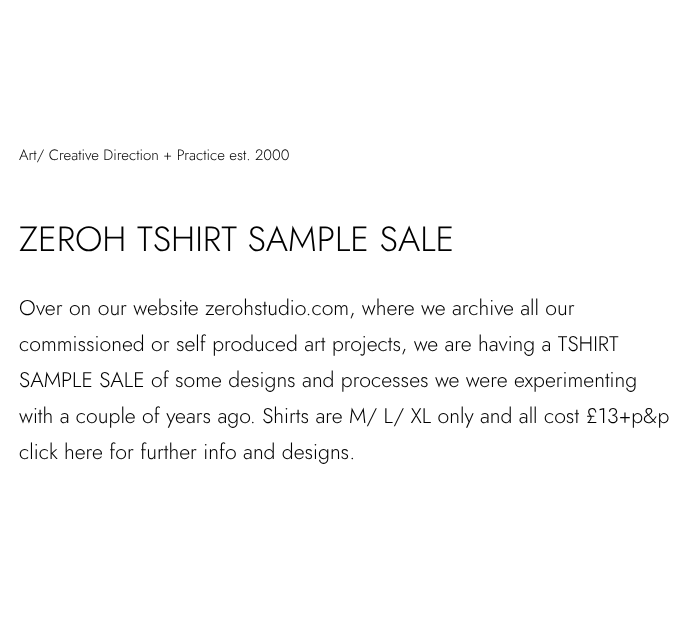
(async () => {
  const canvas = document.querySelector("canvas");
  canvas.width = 692;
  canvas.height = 629;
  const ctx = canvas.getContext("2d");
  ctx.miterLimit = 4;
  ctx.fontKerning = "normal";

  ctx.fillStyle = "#ffffff";
  ctx.fillRect(0, 0, 692, 629);
  ctx.font = "300 15px Jost";
  ctx.fillStyle = "#000000";
  ctx.fillText("Art/ Creative Direction + Practice est. 2000", 19, 160);
  ctx.font = "300 35px Jost";
  ctx.fillText("ZEROH TSHIRT SAMPLE SALE", 19, 251);
  ctx.font = "300 21.25px Jost";
  for (const [text, x, y] of [
    ["Over on our website zerohstudio.com, where we archive all our", 19, 315],
    ["commissioned or self produced art projects, we are having a TSHIRT", 19, 351],
    ["SAMPLE SALE of some designs and processes we were experimenting", 19, 387],
    ["with a couple of years ago. Shirts are M/ L/ XL only and all cost £13+p&p", 19, 423],
    ["click here for further info and designs.", 19, 459],
  ]) {
    ctx.fillText(text, x, y);
  }
})();
